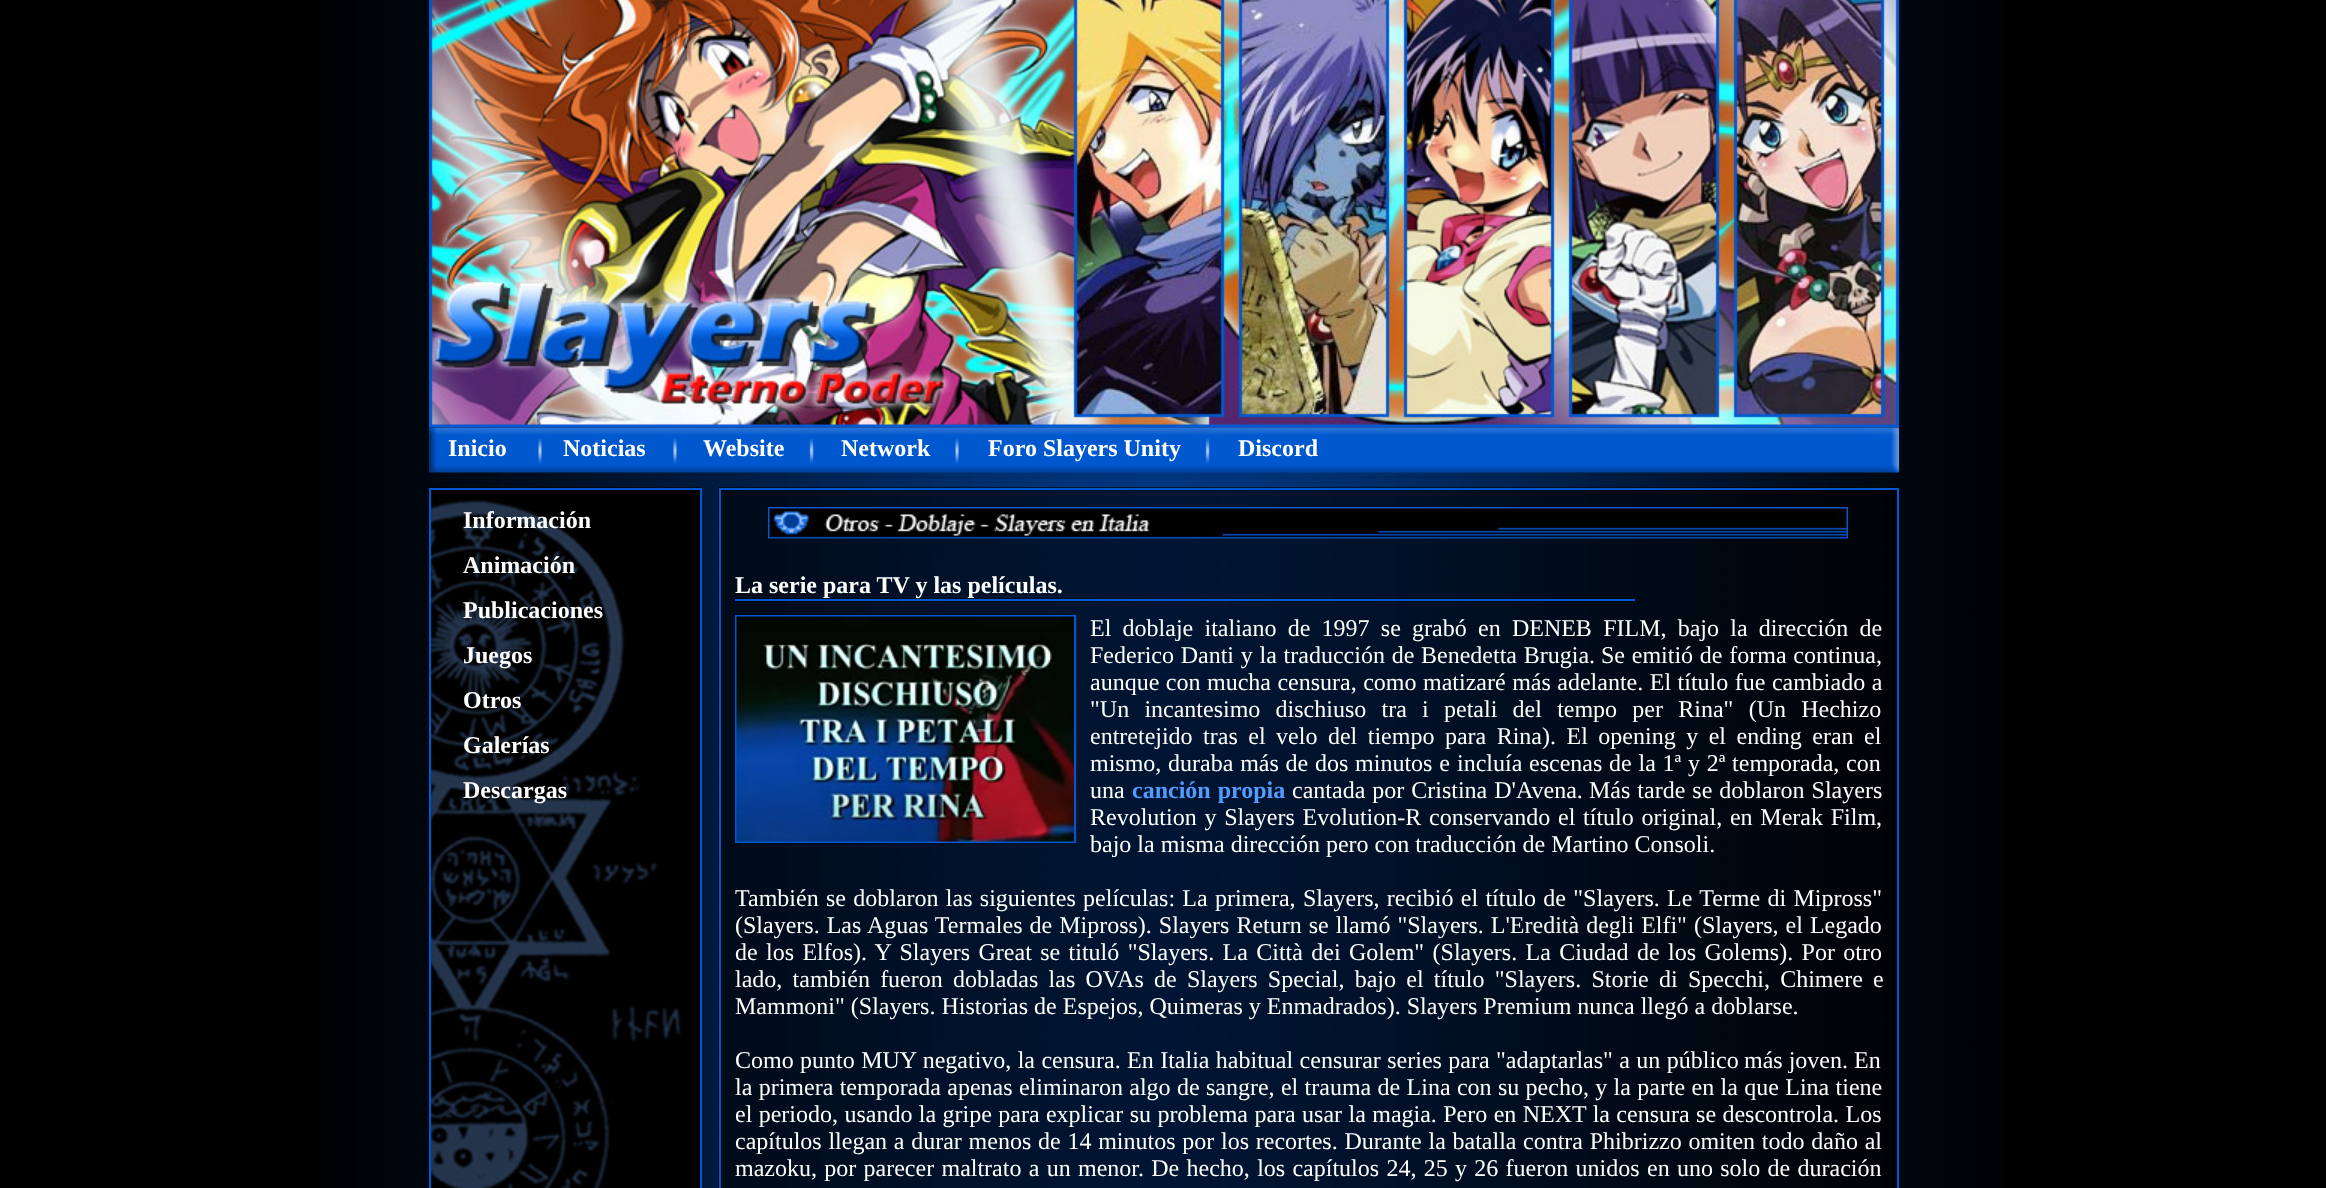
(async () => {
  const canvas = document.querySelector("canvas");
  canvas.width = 2326;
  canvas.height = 1188;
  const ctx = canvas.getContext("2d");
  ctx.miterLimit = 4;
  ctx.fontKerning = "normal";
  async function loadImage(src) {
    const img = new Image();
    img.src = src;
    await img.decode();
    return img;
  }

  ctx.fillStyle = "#000000";
  ctx.fillRect(0, 0, 2326, 1188);
  ctx.drawImage(await loadImage("img/1.png"), 318, 0, 1686, 1188);
  ctx.drawImage(await loadImage("img/2.png"), 429, 0, 1470, 428);
  ctx.drawImage(await loadImage("img/3.png"), 429, 427, 1470, 46);
  ctx.drawImage(await loadImage("img/4.png"), 430, 487, 271, 701);
  ctx.strokeStyle = "#0157ce";
  ctx.lineWidth = 2;
  ctx.strokeRect(430, 489, 271, 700);
  ctx.fillStyle = "rgba(0, 0, 0, 0.6)";
  ctx.fillRect(718, 487, 1181, 701);
  ctx.strokeRect(720, 489, 1178, 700);
  ctx.drawImage(await loadImage("img/5.png"), 768, 507, 1080, 32);
  ctx.fillStyle = "#0157ce";
  ctx.fillRect(735, 599, 900, 2);
  ctx.strokeRect(736, 616, 339, 226);
  ctx.drawImage(await loadImage("img/6.png"), 736, 616, 338, 226);
  ctx.font = "bold 24px Liberation Serif";
  ctx.fillStyle = "#ffffff";
  for (const [text, x, y] of [
    ["Inicio", 448, 456],
    ["Noticias", 563, 456],
    ["Website", 703, 456],
    ["Network", 841, 456],
    ["Foro Slayers Unity", 988, 456],
    ["Discord", 1238, 456],
    ["Información", 463, 528],
    ["Animación", 463, 573],
    ["Publicaciones", 463, 618],
    ["Juegos", 463, 663],
    ["Otros", 463, 708],
    ["Galerías", 463, 753],
    ["Descargas", 463, 798],
    ["La serie para TV y las películas.", 735, 593],
  ]) {
    ctx.fillText(text, x, y);
  }
  ctx.wordSpacing = "5.25px";
  ctx.font = "24px Liberation Serif";
  ctx.fillText("El doblaje italiano de 1997 se grabó en DENEB FILM, bajo la dirección de", 1090, 636);
  ctx.wordSpacing = "0.75px";
  ctx.fillText("Federico Danti y la traducción de Benedetta Brugia.", 1090, 663);
  ctx.fillText("Se emitió de forma continua,", 1601, 663);
  ctx.wordSpacing = "0.5px";
  ctx.fillText("aunque con mucha censura, como matizaré más adelante. El título fue cambiado a", 1090, 690);
  ctx.wordSpacing = "9.25px";
  ctx.fillText("\"Un incantesimo dischiuso tra i petali del tempo per Rina\" (Un Hechizo", 1090, 717);
  ctx.wordSpacing = "4.5px";
  ctx.fillText("entretejido tras el velo del tiempo para Rina). El opening y el ending eran el", 1090, 744);
  ctx.wordSpacing = "0.75px";
  ctx.fillText("mismo, duraba más de dos minutos e", 1090, 771);
  ctx.fillText("incluía escenas de la 1ª y 2ª temporada, con", 1457, 771);
  ctx.wordSpacing = "0px";
  ctx.fillText("una", 1090, 798);
  ctx.wordSpacing = "1px";
  ctx.font = "bold 24px Liberation Serif";
  ctx.fillStyle = "#529bff";
  ctx.fillText("canción propia", 1132, 798);
  ctx.font = "24px Liberation Serif";
  ctx.fillStyle = "#ffffff";
  ctx.fillText("cantada por Cristina D'Avena.", 1292, 798);
  ctx.fillText("Más tarde se doblaron Slayers", 1589, 798);
  ctx.wordSpacing = "1.75px";
  ctx.fillText("Revolution y Slayers Evolution-R conservando el título original, en Merak Film,", 1090, 825);
  ctx.wordSpacing = "0px";
  ctx.fillText("bajo la misma dirección pero con traducción de Martino Consoli.", 1090, 852);
  ctx.wordSpacing = "1.3px";
  ctx.fillText("También se doblaron las siguientes películas: La primera, Slayers, recibió el título de \"Slayers. Le Terme di Mipross\"", 735, 906);
  ctx.wordSpacing = "1px";
  ctx.fillText("(Slayers. Las Aguas Termales de Mipross). Slayers Return se llamó \"Slayers. L'Eredità degli Elfi\" (Slayers, el Legado", 735, 933);
  ctx.wordSpacing = "2.4px";
  ctx.fillText("de los Elfos). Y Slayers Great se tituló \"Slayers. La Città dei Golem\" (Slayers. La Ciudad de los Golems). Por otro", 735, 960);
  ctx.wordSpacing = "4.25px";
  ctx.fillText("lado, también fueron dobladas las OVAs de Slayers Special, bajo el título \"Slayers. Storie di Specchi, Chimere e", 735, 987);
  ctx.wordSpacing = "0px";
  ctx.fillText("Mammoni\" (Slayers. Historias de Espejos, Quimeras y Enmadrados). Slayers Premium nunca llegó a doblarse.", 735, 1014);
  ctx.wordSpacing = "0.4px";
  ctx.fillText("Como punto MUY negativo, la censura. En Italia habitual censurar series para \"adaptarlas\" a un público", 735, 1068);
  ctx.wordSpacing = "0px";
  ctx.fillText("más joven. En", 1744, 1068);
  ctx.wordSpacing = "0.35px";
  ctx.fillText("la primera temporada apenas eliminaron algo de sangre, el trauma de Lina con su pecho, y la parte en la que Lina tiene", 735, 1095);
  ctx.wordSpacing = "0.4px";
  ctx.fillText("el periodo, usando la gripe para explicar su problema para usar la magia. Pero en NEXT la censura se descontrola. Los", 735, 1122);
  ctx.wordSpacing = "0.75px";
  ctx.fillText("capítulos llegan a durar menos de 14 minutos por los recortes. Durante la batalla", 735, 1149);
  ctx.fillText("contra Phibrizzo omiten todo daño al", 1523, 1149);
  ctx.wordSpacing = "1.3px";
  ctx.fillText("mazoku, por parecer maltrato a un menor. De hecho, los capítulos 24, 25 y 26 fueron unidos", 735, 1176);
  ctx.fillText("en uno solo de duración", 1647, 1176);
})();
